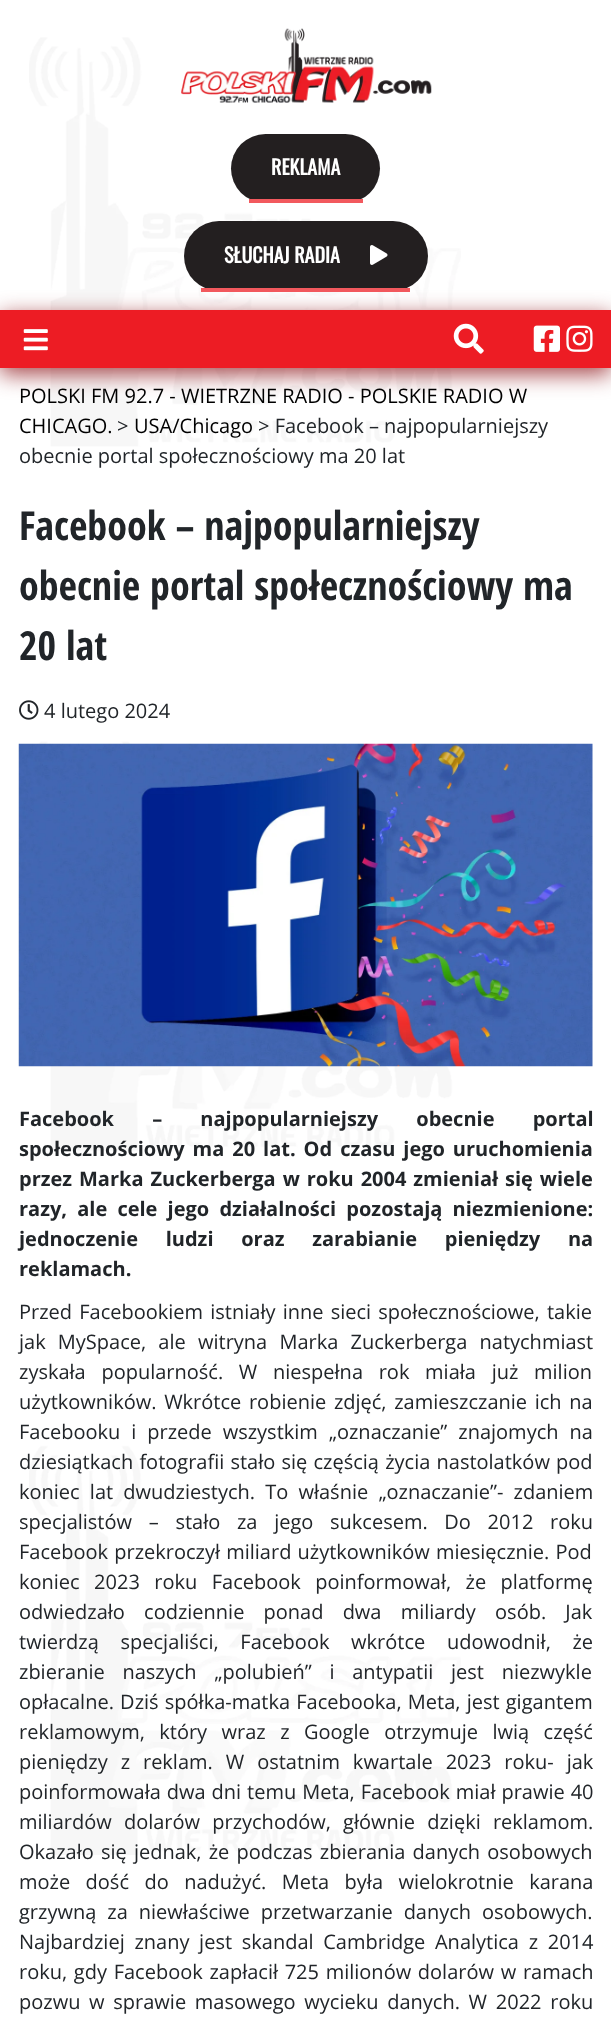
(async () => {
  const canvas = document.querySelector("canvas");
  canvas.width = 611;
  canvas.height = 2024;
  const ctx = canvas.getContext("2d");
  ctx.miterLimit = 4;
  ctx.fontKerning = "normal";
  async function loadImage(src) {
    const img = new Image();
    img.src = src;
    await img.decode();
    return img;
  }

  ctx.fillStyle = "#ffffff";
  ctx.fillRect(0, 0, 611, 2024);
  ctx.drawImage(await loadImage("img/1.png"), 29, 37, 432, 1818);
  ctx.drawImage(await loadImage("img/2.png"), 181, 28, 251, 75);
  ctx.fillStyle = "#231f20";
  ctx.beginPath();
  ctx.roundRect(231, 134, 149, 69, 34.5);
  ctx.fill();
  ctx.fillStyle = "#f2595e";
  ctx.fillRect(249, 199, 114, 4);
  ctx.fillStyle = "#231f20";
  ctx.beginPath();
  ctx.roundRect(184, 221, 244, 70, 35);
  ctx.fill();
  ctx.fillStyle = "#f2595e";
  ctx.fillRect(201, 288, 209, 4);
  ctx.drawImage(await loadImage("img/3.png"), 370, 245, 18, 20);
  ctx.fillStyle = "rgba(142, 22, 27, 0.8)";
  ctx.filter = "blur(11px)";
  ctx.beginPath();
  ctx.rect(0, 316, 611, 58);
  ctx.fill();
  ctx.filter = "none";
  ctx.fillStyle = "#ed1c24";
  ctx.fillRect(0, 310, 611, 58);
  ctx.drawImage(await loadImage("img/4.png"), 23, 329, 25, 22);
  ctx.drawImage(await loadImage("img/5.png"), 453, 323, 31, 31);
  ctx.drawImage(await loadImage("img/6.png"), 533, 325, 27, 27);
  ctx.drawImage(await loadImage("img/7.png"), 566, 325, 27, 27);
  ctx.drawImage(await loadImage("img/8.png"), 19, 700, 20, 20);
  ctx.drawImage(await loadImage("img/9.png"), 18, 743, 575, 324);
  ctx.font = "bold 20px Oswald";
  ctx.fillStyle = "#ffffff";
  ctx.fillText("REKLAMA", 271, 175);
  ctx.fillText("SŁUCHAJ RADIA", 224, 263);
  ctx.font = "20px Open Sans";
  ctx.fillStyle = "#000000";
  ctx.fillText("POLSKI FM 92.7 - WIETRZNE RADIO - POLSKIE RADIO W", 19, 403);
  ctx.fillText("CHICAGO.", 19, 433);
  ctx.fillStyle = "#212529";
  ctx.fillText(">", 117, 433);
  ctx.fillStyle = "#000000";
  ctx.fillText("USA/Chicago", 134, 433);
  ctx.fillStyle = "#212529";
  ctx.fillText("> Facebook – najpopularniejszy", 258, 433);
  ctx.fillText("obecnie portal społecznościowy ma 20 lat", 19, 463);
  ctx.font = "bold 40px Open Sans Condensed";
  for (const [text, x, y] of [
    ["Facebook – najpopularniejszy", 19, 540],
    ["obecnie portal społecznościowy ma", 19, 600],
    ["20 lat", 19, 660],
  ]) {
    ctx.fillText(text, x, y);
  }
  ctx.font = "20px Open Sans";
  ctx.fillText("4 lutego 2024", 44, 718);
  ctx.wordSpacing = "33px";
  ctx.font = "bold 20px Open Sans";
  ctx.fillText("Facebook – najpopularniejszy obecnie portal", 19, 1126);
  ctx.wordSpacing = "2.75px";
  ctx.fillText("społecznościowy ma 20 lat. Od czasu jego uruchomienia", 19, 1156);
  ctx.wordSpacing = "1.75px";
  ctx.fillText("przez Marka Zuckerberga w roku 2004 zmieniał się wiele", 19, 1186);
  ctx.wordSpacing = "5px";
  ctx.fillText("razy, ale cele jego działalności pozostają niezmienione:", 19, 1216);
  ctx.wordSpacing = "22.5px";
  ctx.fillText("jednoczenie ludzi oraz zarabianie pieniędzy na", 19, 1246);
  ctx.wordSpacing = "0px";
  ctx.fillText("reklamach.", 19, 1276);
  ctx.wordSpacing = "2px";
  ctx.font = "20px Open Sans";
  ctx.fillText("Przed Facebookiem istniały inne sieci społecznościowe, takie", 19, 1319);
  ctx.wordSpacing = "7px";
  ctx.fillText("jak MySpace, ale witryna Marka Zuckerberga natychmiast", 19, 1349);
  ctx.wordSpacing = "10.5px";
  ctx.fillText("zyskała popularność. W niespełna rok miała już milion", 19, 1379);
  ctx.wordSpacing = "2.5px";
  ctx.fillText("użytkowników. Wkrótce robienie zdjęć, zamieszczanie ich na", 19, 1409);
  ctx.wordSpacing = "5.75px";
  ctx.fillText("Facebooku i przede wszystkim „oznaczanie” znajomych na", 19, 1439);
  ctx.wordSpacing = "1px";
  ctx.fillText("dziesiątkach fotografii stało się częścią życia nastolatków pod", 19, 1469);
  ctx.wordSpacing = "5px";
  ctx.fillText("koniec lat dwudziestych. To właśnie „oznaczanie”- zdaniem", 19, 1499);
  ctx.wordSpacing = "11.5px";
  ctx.fillText("specjalistów – stało za jego sukcesem. Do 2012 roku", 19, 1529);
  ctx.wordSpacing = "1px";
  ctx.fillText("Facebook przekroczył miliard użytkowników miesięcznie. Pod", 19, 1559);
  ctx.wordSpacing = "9.25px";
  ctx.fillText("koniec 2023 roku Facebook poinformował, że platformę", 19, 1589);
  ctx.wordSpacing = "14px";
  ctx.fillText("odwiedzało codziennie ponad dwa miliardy osób. Jak", 19, 1619);
  ctx.wordSpacing = "16.5px";
  ctx.fillText("twierdzą specjaliści, Facebook wkrótce udowodnił, że", 19, 1649);
  ctx.wordSpacing = "12.5px";
  ctx.fillText("zbieranie naszych „polubień” i antypatii jest niezwykle", 19, 1679);
  ctx.wordSpacing = "1px";
  ctx.fillText("opłacalne. Dziś spółka-matka Facebooka, Meta, jest gigantem", 19, 1709);
  ctx.wordSpacing = "9.25px";
  ctx.fillText("reklamowym, który wraz z Google otrzymuje lwią część", 19, 1739);
  ctx.wordSpacing = "7.75px";
  ctx.fillText("pieniędzy z reklam. W ostatnim kwartale 2023 roku- jak", 19, 1769);
  ctx.wordSpacing = "0.75px";
  ctx.fillText("poinformowała dwa dni temu Meta, Facebook miał prawie 40", 19, 1799);
  ctx.wordSpacing = "7px";
  ctx.fillText("miliardów dolarów przychodów, głównie dzięki reklamom.", 19, 1829);
  ctx.wordSpacing = "2px";
  ctx.fillText("Okazało się jednak, że podczas zbierania danych osobowych", 19, 1859);
  ctx.wordSpacing = "10.25px";
  ctx.fillText("może dość do nadużyć. Meta była wielokrotnie karana", 19, 1889);
  ctx.wordSpacing = "5.75px";
  ctx.fillText("grzywną za niewłaściwe przetwarzanie danych osobowych.", 19, 1919);
  ctx.wordSpacing = "4.5px";
  ctx.fillText("Najbardziej znany jest skandal Cambridge Analytica z 2014", 19, 1949);
  ctx.wordSpacing = "1.5px";
  ctx.fillText("roku, gdy Facebook zapłacił 725 milionów dolarów w ramach", 19, 1979);
  ctx.wordSpacing = "3.5px";
  ctx.fillText("pozwu w sprawie masowego wycieku danych. W 2022 roku", 19, 2009);
})();
